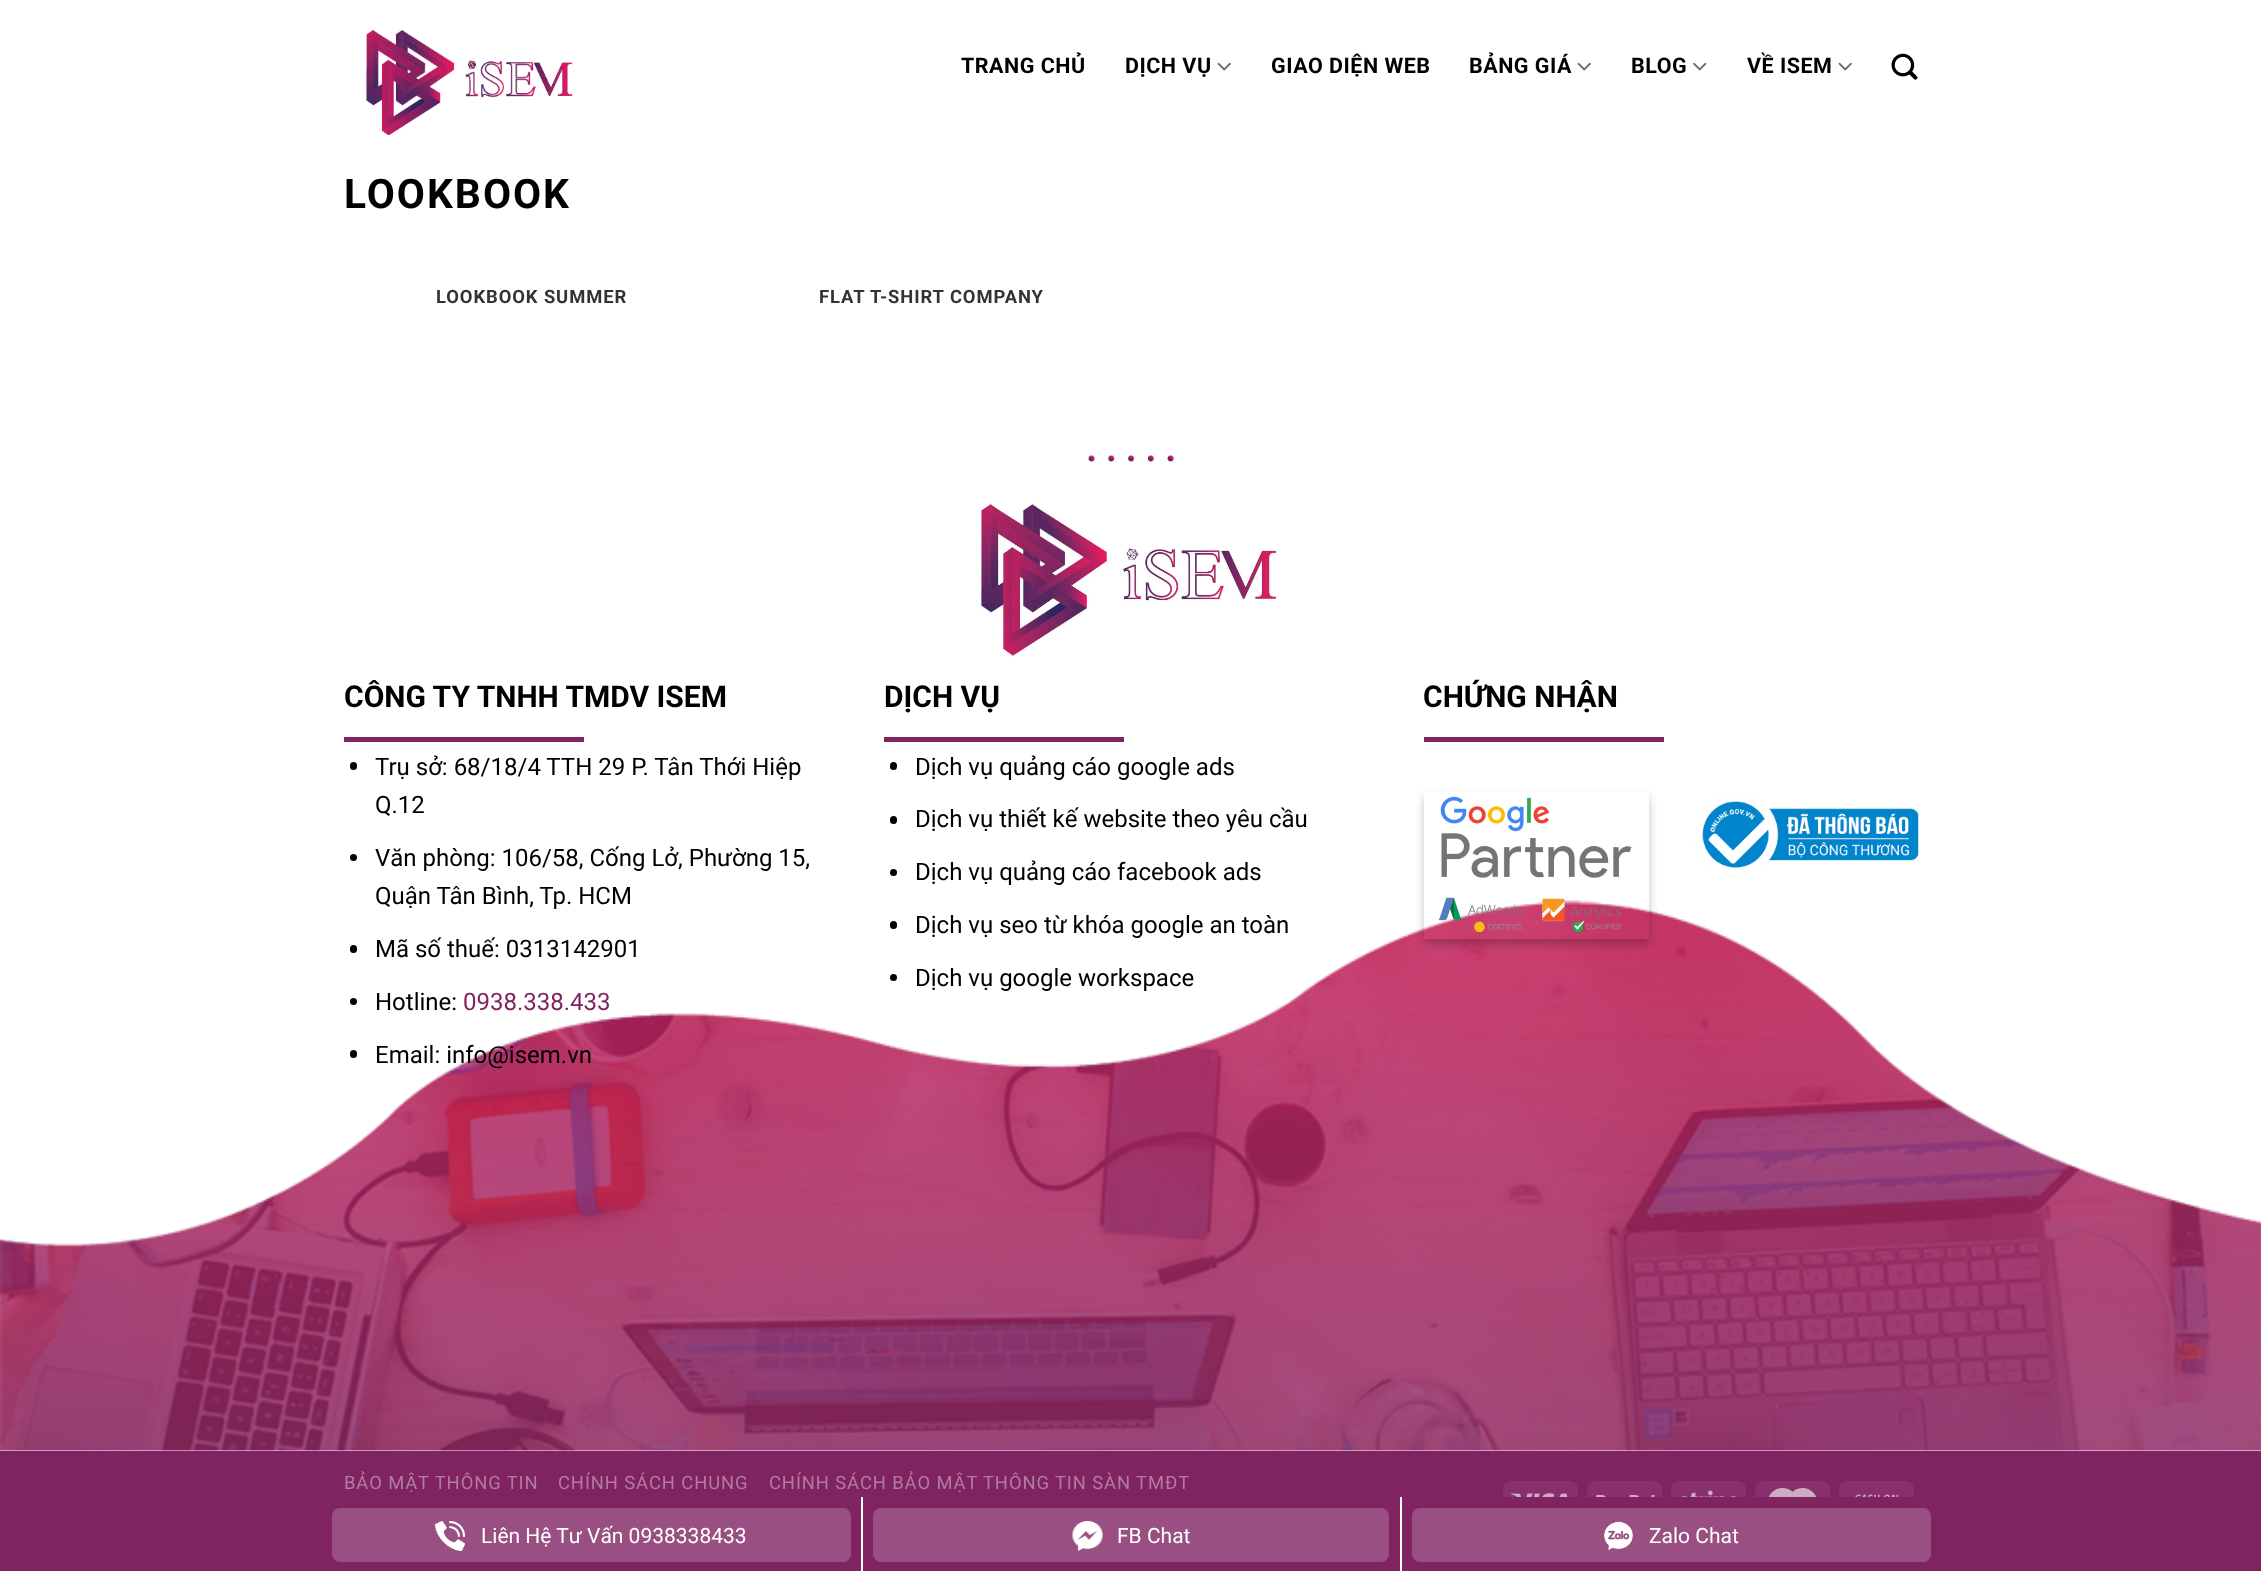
(async () => {
  const canvas = document.querySelector("canvas");
  canvas.width = 2261;
  canvas.height = 1571;
  const ctx = canvas.getContext("2d");
  ctx.miterLimit = 4;
  ctx.fontKerning = "normal";
  async function loadImage(src) {
    const img = new Image();
    img.src = src;
    await img.decode();
    return img;
  }
  let path;

  ctx.fillStyle = "#ffffff";
  ctx.fillRect(0, 0, 2261, 1571);
  ctx.drawImage(await loadImage("img/1.png"), 366, 29, 207, 106);
  ctx.drawImage(await loadImage("img/2.png"), 1217, 62, 14, 9);
  ctx.drawImage(await loadImage("img/2.png"), 1577, 62, 14, 9);
  ctx.drawImage(await loadImage("img/3.png"), 1693, 62, 14, 9);
  ctx.drawImage(await loadImage("img/2.png"), 1838, 62, 14, 9);
  ctx.drawImage(await loadImage("img/4.png"), 1891, 53, 27, 27);
  ctx.drawImage(await loadImage("img/5.png"), 1088, 455, 87, 7);
  ctx.drawImage(await loadImage("img/6.png"), 980, 503, 298, 154);
  ctx.fillStyle = "#7f2361";
  ctx.fillRect(344, 737, 240, 5);
  ctx.fillStyle = "#000000";
  ctx.beginPath();
  ctx.roundRect(350, 762, 7, 8, 3.5);
  ctx.fill();
  ctx.beginPath();
  ctx.arc(353.5, 857.5, 3.5, 0, Math.PI * 2);
  ctx.fill();
  ctx.drawImage(await loadImage("img/9.png"), 0, 900, 2261, 551);
  ctx.beginPath();
  ctx.roundRect(350, 945, 7, 8, 3.5);
  ctx.fill();
  ctx.beginPath();
  ctx.arc(353.5, 1001.5, 3.5, 0, Math.PI * 2);
  ctx.fill();
  ctx.beginPath();
  ctx.roundRect(350, 1050, 7, 8, 3.5);
  ctx.fill();
  ctx.fillStyle = "#7f2361";
  ctx.fillRect(884, 737, 240, 5);
  ctx.fillStyle = "#000000";
  ctx.beginPath();
  ctx.roundRect(890, 762, 7, 8, 3.5);
  ctx.fill();
  ctx.beginPath();
  ctx.roundRect(890, 816, 7, 8, 3.5);
  ctx.fill();
  ctx.beginPath();
  ctx.arc(893.5, 872.5, 3.5, 0, Math.PI * 2);
  ctx.fill();
  ctx.beginPath();
  ctx.roundRect(890, 921, 7, 8, 3.5);
  ctx.fill();
  ctx.beginPath();
  ctx.arc(893.5, 977.5, 3.5, 0, Math.PI * 2);
  ctx.fill();
  ctx.fillStyle = "#7f2361";
  ctx.fillRect(1424, 737, 240, 5);
  ctx.save();
  path = new Path2D("M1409 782H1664V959H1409ZM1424 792H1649V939H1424Z");
  ctx.clip(path, "evenodd");
  ctx.fillStyle = "rgba(0, 0, 0, 0.23)";
  ctx.filter = "blur(4.5px)";
  ctx.beginPath();
  ctx.rect(1424, 797, 225, 147);
  ctx.fill();
  ctx.filter = "none";
  ctx.restore();
  ctx.drawImage(await loadImage("img/7.png"), 1438, 796, 194, 138);
  ctx.drawImage(await loadImage("img/8.png"), 1694, 792, 225, 85);
  ctx.fillRect(0, 1451, 2261, 46);
  ctx.fillStyle = "#87306b";
  ctx.beginPath();
  ctx.roundRect(1503, 1481, 75, 46, 8);
  ctx.fill();
  ctx.drawImage(await loadImage("img/10.png"), 1511, 1493, 57, 4);
  ctx.beginPath();
  ctx.roundRect(1587, 1481, 75, 46, 8);
  ctx.fill();
  ctx.drawImage(await loadImage("img/11.png"), 1596, 1495, 59, 2);
  ctx.beginPath();
  ctx.roundRect(1671, 1481, 75, 46, 8);
  ctx.fill();
  ctx.drawImage(await loadImage("img/12.png"), 1681, 1490, 55, 7);
  ctx.beginPath();
  ctx.roundRect(1755, 1481, 75, 46, 8);
  ctx.fill();
  ctx.drawImage(await loadImage("img/13.png"), 1768, 1488, 49, 9);
  ctx.beginPath();
  ctx.roundRect(1839, 1481, 75, 46, 8);
  ctx.fill();
  ctx.drawImage(await loadImage("img/14.png"), 1855, 1494, 43, 3);
  ctx.fillStyle = "#7f2361";
  ctx.fillRect(0, 1497, 2261, 74);
  ctx.fillStyle = "#994f81";
  ctx.beginPath();
  ctx.roundRect(332, 1508, 519, 54, 8);
  ctx.fill();
  ctx.drawImage(await loadImage("img/15.png"), 435, 1521, 30, 30);
  ctx.fillStyle = "#ffffff";
  ctx.fillRect(1400, 1497, 2, 74);
  ctx.fillRect(861, 1497, 2, 74);
  ctx.fillStyle = "#994f81";
  ctx.beginPath();
  ctx.roundRect(873, 1508, 516, 54, 8);
  ctx.fill();
  ctx.drawImage(await loadImage("img/16.png"), 1072, 1521, 31, 30);
  ctx.beginPath();
  ctx.roundRect(1412, 1508, 519, 54, 8);
  ctx.fill();
  ctx.drawImage(await loadImage("img/17.png"), 1604, 1521, 29, 30);
  ctx.letterSpacing = "0.5px";
  ctx.font = "bold 21.5px Roboto";
  ctx.fillStyle = "#000000";
  for (const [text, x, y] of [
    ["TRANG CHỦ", 961, 73],
    ["DỊCH VỤ", 1125, 73],
    ["GIAO DIỆN WEB", 1271, 73],
    ["BẢNG GIÁ", 1469, 73],
    ["BLOG", 1631, 73],
    ["VỀ ISEM", 1747, 73],
  ]) {
    ctx.fillText(text, x, y);
  }
  ctx.letterSpacing = "2px";
  ctx.font = "bold 40.75px Roboto";
  ctx.fillText("LOOKBOOK", 344, 208);
  ctx.letterSpacing = "0.9px";
  ctx.font = "bold 18.4px Roboto";
  ctx.fillStyle = "#333333";
  ctx.fillText("LOOKBOOK SUMMER", 436, 303);
  ctx.fillText("FLAT T-SHIRT COMPANY", 819, 303);
  ctx.letterSpacing = "0px";
  ctx.font = "bold 30px Roboto";
  ctx.fillStyle = "#000000";
  ctx.fillText("CÔNG TY TNHH TMDV ISEM", 344, 707);
  ctx.font = "24px Roboto";
  for (const [text, x, y] of [
    ["Trụ sở: 68/18/4 TTH 29 P. Tân Thới Hiệp", 375, 775],
    ["Q.12", 375, 813],
    ["Văn phòng: 106/58, Cống Lở, Phường 15,", 375, 866],
    ["Quận Tân Bình, Tp. HCM", 375, 904],
    ["Mã số thuế: 0313142901", 375, 957],
    ["Hotline:", 375, 1010],
  ]) {
    ctx.fillText(text, x, y);
  }
  ctx.fillStyle = "#7f2361";
  ctx.fillText("0938.338.433", 463, 1010);
  ctx.fillStyle = "#000000";
  ctx.fillText("Email: info@isem.vn", 375, 1063);
  ctx.font = "bold 30px Roboto";
  ctx.fillText("DỊCH VỤ", 884, 707);
  ctx.font = "24px Roboto";
  for (const [text, x, y] of [
    ["Dịch vụ quảng cáo google ads", 915, 775],
    ["Dịch vụ thiết kế website theo yêu cầu", 915, 827],
    ["Dịch vụ quảng cáo facebook ads", 915, 880],
    ["Dịch vụ seo từ khóa google an toàn", 915, 933],
    ["Dịch vụ google workspace", 915, 986],
  ]) {
    ctx.fillText(text, x, y);
  }
  ctx.font = "bold 30px Roboto";
  ctx.fillText("CHỨNG NHẬN", 1423, 707);
  ctx.letterSpacing = "0.9px";
  ctx.font = "18.4px Roboto";
  ctx.fillStyle = "#b27ba0";
  for (const [text, x, y] of [
    ["BẢO MẬT THÔNG TIN", 344, 1489],
    ["CHÍNH SÁCH CHUNG", 558, 1489],
    ["CHÍNH SÁCH BẢO MẬT THÔNG TIN SÀN TMĐT", 769, 1489],
  ]) {
    ctx.fillText(text, x, y);
  }
  ctx.letterSpacing = "0px";
  ctx.font = "21px Roboto";
  ctx.fillStyle = "#ffffff";
  for (const [text, x, y] of [
    ["Liên Hệ Tư Vấn 0938338433", 481, 1543],
    ["FB Chat", 1117, 1543],
    ["Zalo Chat", 1649, 1543],
  ]) {
    ctx.fillText(text, x, y);
  }
})();
